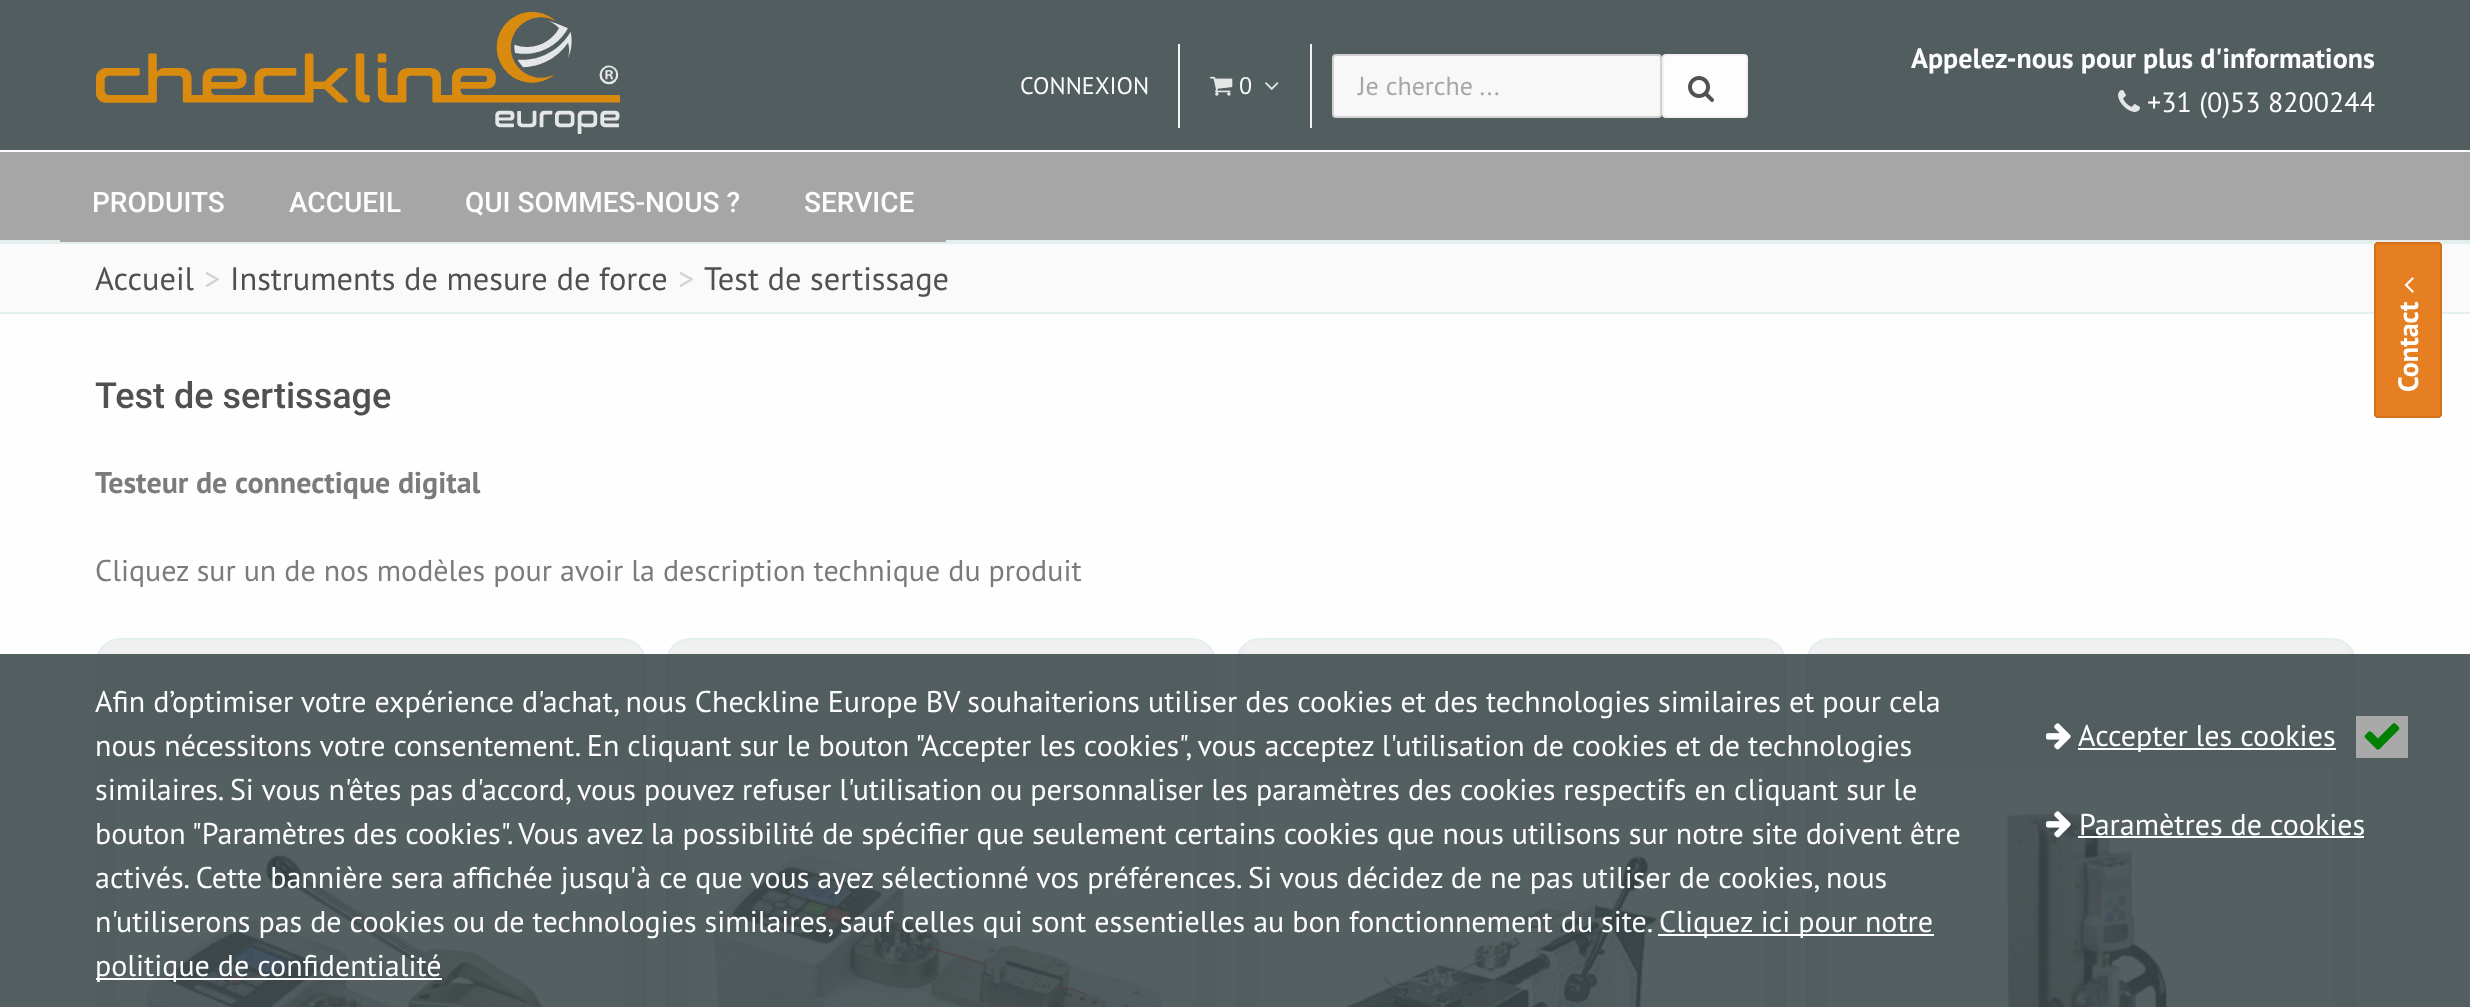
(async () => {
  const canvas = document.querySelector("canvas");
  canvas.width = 2470;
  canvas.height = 1007;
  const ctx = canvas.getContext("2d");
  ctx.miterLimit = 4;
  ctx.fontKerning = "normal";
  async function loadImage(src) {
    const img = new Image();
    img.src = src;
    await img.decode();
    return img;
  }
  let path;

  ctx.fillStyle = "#525d60";
  ctx.fillRect(0, 0, 2470, 1007);
  ctx.fillStyle = "#e3eeee";
  ctx.fillRect(0, 240, 2470, 4);
  ctx.drawImage(await loadImage("img/1.png"), 96, 12, 524, 122);
  ctx.fillStyle = "#f2f2f2";
  ctx.fillRect(1178, 44, 2, 84);
  ctx.fillRect(1310, 44, 2, 84);
  ctx.drawImage(await loadImage("img/2.png"), 1210, 76, 23, 20);
  ctx.drawImage(await loadImage("img/3.png"), 1265, 82, 14, 8);
  ctx.fillStyle = "#f8f8f8";
  ctx.beginPath();
  ctx.roundRect(1333, 55, 328, 62, 3);
  ctx.fill();
  ctx.strokeStyle = "#d2d2d2";
  ctx.lineWidth = 2;
  ctx.stroke();
  ctx.fillStyle = "#fdfdfd";
  ctx.beginPath();
  ctx.roundRect(1663, 55, 84, 62, 3);
  ctx.fill();
  ctx.strokeStyle = "#f2f2f2";
  ctx.stroke();
  ctx.drawImage(await loadImage("img/4.png"), 1688, 76, 26, 26);
  ctx.drawImage(await loadImage("img/5.png"), 2118, 90, 22, 22);
  for (const [x, y, w, h, color] of [
    [0, 152, 2470, 88, "#a6a6a6"],
    [0, 150, 2470, 2, "#fdfdfd"],
    [60, 240, 886, 2, "#a6a6a6"],
    [0, 244, 2470, 68, "#fafafa"],
    [0, 312, 2470, 2, "#e3eeee"],
    [0, 314, 2470, 693, "#fefefe"],
  ]) {
    ctx.fillStyle = color;
    ctx.fillRect(x, y, w, h);
  }
  ctx.fillStyle = "#f0f0f0";
  ctx.beginPath();
  ctx.roundRect(97, 639, 548, 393, 23);
  ctx.fill();
  ctx.strokeStyle = "#e3eeee";
  ctx.stroke();
  ctx.fillStyle = "#fdfdfd";
  ctx.beginPath();
  ctx.roundRect(118, 768, 506, 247, 8);
  ctx.fill();
  ctx.drawImage(await loadImage("img/6.png"), 147, 853, 396, 154);
  ctx.fillStyle = "#f0f0f0";
  ctx.beginPath();
  ctx.roundRect(667, 639, 548, 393, 23);
  ctx.fill();
  ctx.stroke();
  ctx.fillStyle = "#fdfdfd";
  ctx.beginPath();
  ctx.roundRect(688, 768, 506, 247, 8);
  ctx.fill();
  ctx.drawImage(await loadImage("img/7.png"), 713, 856, 449, 151);
  ctx.fillStyle = "#f0f0f0";
  ctx.beginPath();
  ctx.roundRect(1237, 639, 548, 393, 23);
  ctx.fill();
  ctx.stroke();
  ctx.fillStyle = "#fdfdfd";
  ctx.beginPath();
  ctx.roundRect(1258, 768, 506, 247, 8);
  ctx.fill();
  ctx.drawImage(await loadImage("img/8.png"), 1338, 852, 320, 155);
  ctx.fillStyle = "#f0f0f0";
  ctx.beginPath();
  ctx.roundRect(1807, 639, 548, 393, 23);
  ctx.fill();
  ctx.stroke();
  ctx.fillStyle = "#fdfdfd";
  ctx.beginPath();
  ctx.roundRect(1828, 768, 506, 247, 8);
  ctx.fill();
  ctx.drawImage(await loadImage("img/9.png"), 2006, 811, 162, 196);
  ctx.fillStyle = "#e67e22";
  path = new Path2D("M2374 414V246C2374 244 2376 242 2378 242H2438C2440 242 2442 244 2442 246V414C2442 416 2440 418 2438 418H2378C2376 418 2374 416 2374 414Z");
  ctx.fill(path);
  path = new Path2D("M2375 414V246C2375 244.5 2376.5 243 2378 243H2438C2439.5 243 2441 244.5 2441 246V414C2441 415.5 2439.5 417 2438 417H2378C2376.5 417 2375 415.5 2375 414Z");
  ctx.strokeStyle = "#d67118";
  ctx.stroke(path);
  ctx.drawImage(await loadImage("img/10.png"), 2404, 277, 10, 16);
  for (const [x, y, w, h, color] of [
    [0, 654, 2470, 353, "rgba(54, 67, 70, 0.85)"],
    [1658, 934, 276, 2, "#ffffff"],
    [96, 978, 346, 2, "#ffffff"],
  ]) {
    ctx.fillStyle = color;
    ctx.fillRect(x, y, w, h);
  }
  ctx.drawImage(await loadImage("img/11.png"), 2046, 723, 25, 27);
  ctx.fillRect(2078, 748, 258, 2);
  ctx.fillStyle = "#a9a9a9";
  ctx.fillRect(2356, 716, 52, 42);
  ctx.drawImage(await loadImage("img/12.png"), 2364, 723, 36, 27);
  ctx.drawImage(await loadImage("img/13.png"), 2046, 811, 25, 27);
  ctx.fillStyle = "#ffffff";
  ctx.fillRect(2078, 836, 286, 2);
  ctx.font = "24px PT Sans";
  ctx.fillStyle = "#fdfdfd";
  ctx.fillText("CONNEXION", 1020, 94);
  ctx.fillText("0", 1239, 94);
  ctx.font = "26px PT Sans";
  ctx.fillStyle = "#a6a6a6";
  ctx.fillText("Je cherche ...", 1358, 95);
  ctx.font = "bold 28px PT Sans";
  ctx.fillStyle = "#fdfdfd";
  ctx.fillText("Appelez-nous pour plus d'informations", 1911, 68);
  ctx.font = "28px PT Sans";
  ctx.fillText("+31 (0)53 8200244", 2147, 112);
  ctx.font = "500 28px Roboto";
  for (const [text, x, y] of [
    ["PRODUITS", 92, 212],
    ["ACCUEIL", 289, 212],
    ["QUI SOMMES-NOUS ?", 465, 212],
    ["SERVICE", 804, 212],
  ]) {
    ctx.fillText(text, x, y);
  }
  ctx.font = "32.4px PT Sans";
  ctx.fillStyle = "#505050";
  ctx.fillText("Accueil", 95, 290);
  ctx.fillStyle = "#d2d2d2";
  ctx.fillText(">", 204, 290);
  ctx.fillStyle = "#505050";
  ctx.fillText("Instruments de mesure de force", 230, 290);
  ctx.fillStyle = "#d2d2d2";
  ctx.fillText(">", 678, 290);
  ctx.fillStyle = "#505050";
  ctx.fillText("Test de sertissage", 704, 290);
  ctx.font = "500 36px Roboto";
  ctx.fillText("Test de sertissage", 95, 408);
  ctx.font = "bold 30px PT Sans";
  ctx.fillStyle = "#7b7b7b";
  ctx.fillText("Testeur de connectique digital", 95, 493);
  ctx.font = "30px PT Sans";
  ctx.fillText("Cliquez sur un de nos modèles pour avoir la description technique du produit", 95, 581);
  ctx.font = "bold 28px PT Sans";
  ctx.fillStyle = "#fdfdfd";
  ctx.save();
  ctx.translate(2418, 392);
  ctx.rotate(-90 * Math.PI / 180);
  ctx.fillText("Contact", 0, 0);
  ctx.restore();
  ctx.font = "30px PT Sans";
  for (const [text, x, y] of [
    ["Afin d’optimiser votre expérience d'achat, nous Checkline Europe BV souhaiterions utiliser des cookies et des technologies similaires et pour cela", 95, 712],
    ["nous nécessitons votre consentement. En cliquant sur le bouton \"Accepter les cookies\", vous acceptez l'utilisation de cookies et de technologies", 95, 756],
    ["similaires. Si vous n'êtes pas d'accord, vous pouvez refuser l'utilisation ou personnaliser les paramètres des cookies respectifs en cliquant sur le", 95, 800],
    ["bouton \"Paramètres des cookies\". Vous avez la possibilité de spécifier que seulement certains cookies que nous utilisons sur notre site doivent être", 95, 844],
    ["activés. Cette bannière sera affichée jusqu'à ce que vous ayez sélectionné vos préférences. Si vous décidez de ne pas utiliser de cookies, nous", 95, 888],
    ["n'utiliserons pas de cookies ou de technologies similaires, sauf celles qui sont essentielles au bon fonctionnement du site.", 95, 932],
    ["Cliquez ici pour notre", 1659, 932],
    ["politique de confidentialité", 95, 976],
    ["Accepter les cookies", 2078, 746],
    ["Paramètres de cookies", 2079, 835],
  ]) {
    ctx.fillText(text, x, y);
  }
})();
